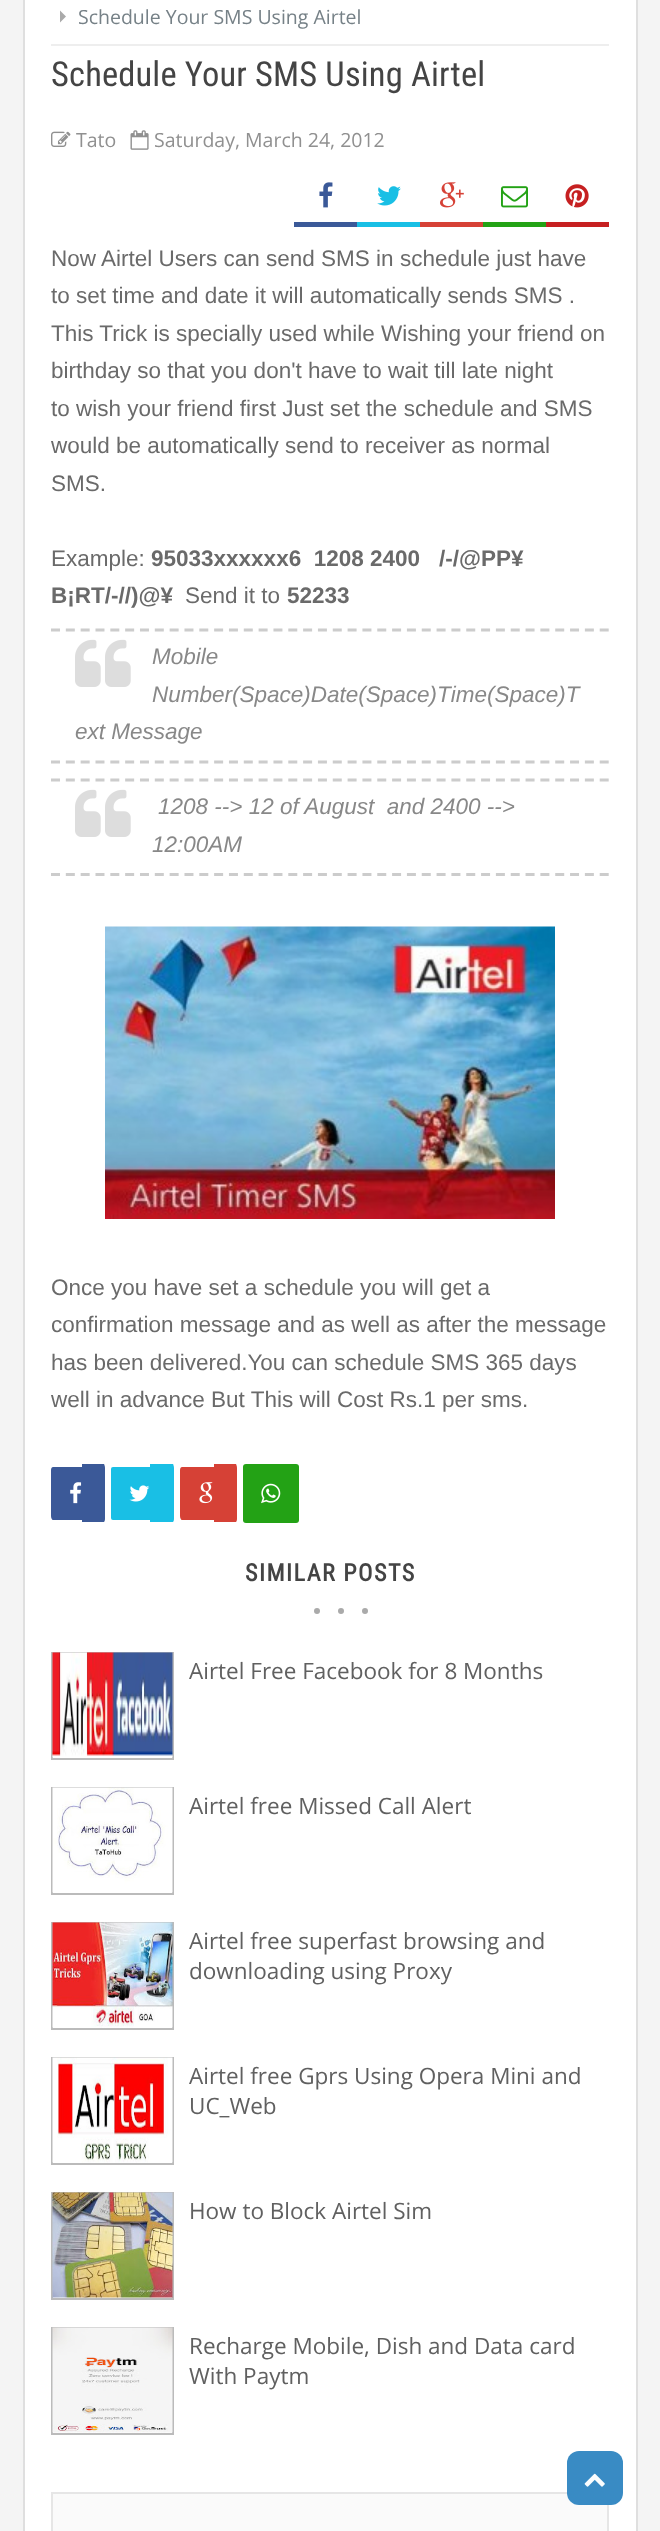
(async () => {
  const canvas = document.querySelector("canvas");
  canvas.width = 660;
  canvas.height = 2531;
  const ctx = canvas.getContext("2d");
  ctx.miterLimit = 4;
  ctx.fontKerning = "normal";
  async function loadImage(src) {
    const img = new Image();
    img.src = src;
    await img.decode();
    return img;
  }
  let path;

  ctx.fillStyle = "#f4f4f4";
  ctx.fillRect(0, 0, 660, 2531);
  ctx.fillStyle = "#ffffff";
  ctx.beginPath();
  ctx.rect(24, -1, 613, 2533);
  ctx.fill();
  ctx.strokeStyle = "#dfdfdf";
  ctx.lineWidth = 2;
  ctx.stroke();
  ctx.fillStyle = "#eeeeee";
  ctx.fillRect(51, 44, 558, 2);
  ctx.fillStyle = "#aaaaaa";
  path = new Path2D("M60 22.5V10.5L66 16.5Z");
  ctx.fill(path);
  ctx.drawImage(await loadImage("img/1.png"), 51, 131, 20, 16);
  ctx.drawImage(await loadImage("img/2.png"), 130, 130, 19, 20);
  ctx.fillStyle = "#3b5998";
  ctx.fillRect(294, 222, 63, 5);
  ctx.drawImage(await loadImage("img/3.png"), 319, 182, 14, 26);
  ctx.fillStyle = "#19bfe5";
  ctx.fillRect(357, 222, 63, 5);
  ctx.drawImage(await loadImage("img/4.png"), 377, 186, 24, 20);
  ctx.fillStyle = "#d64136";
  ctx.fillRect(420, 222, 63, 5);
  ctx.drawImage(await loadImage("img/5.png"), 440, 182, 24, 26);
  ctx.fillStyle = "#23a215";
  ctx.fillRect(483, 222, 63, 5);
  ctx.drawImage(await loadImage("img/6.png"), 501, 186, 27, 22);
  ctx.fillStyle = "#c62021";
  ctx.fillRect(546, 222, 63, 5);
  ctx.drawImage(await loadImage("img/7.png"), 565, 184, 24, 24);
  path = new Path2D("M51 630H609");
  ctx.strokeStyle = "#cccccc";
  ctx.lineWidth = 3;
  ctx.setLineDash([9, 5.83]);
  ctx.stroke(path);
  path = new Path2D("M51 762H609");
  ctx.stroke(path);
  ctx.drawImage(await loadImage("img/8.png"), 75, 639, 56, 48);
  path = new Path2D("M51 780H609");
  ctx.stroke(path);
  path = new Path2D("M51 874.5H609");
  ctx.stroke(path);
  ctx.drawImage(await loadImage("img/8.png"), 75, 789, 56, 48);
  ctx.drawImage(await loadImage("img/9.png"), 105, 926, 450, 293);
  ctx.fillStyle = "#3b5998";
  path = new Path2D("M53 1467H82V1520H53C52 1520 51 1518 51 1516V1470C51 1468 52 1467 53 1467ZM82 1464H104C104 1464 105 1466 105 1468V1519C105 1521 104 1522 104 1522H82Z");
  ctx.fill(path);
  ctx.drawImage(await loadImage("img/10.png"), 70, 1482, 12, 22);
  ctx.fillStyle = "#19bfe5";
  ctx.beginPath();
  ctx.roundRect(111, 1467, 39, 53, [2, 0, 0, 2]);
  ctx.fill();
  path = new Path2D("M150 1464H173C173 1464 174 1466 174 1468V1519C174 1521 173 1522 173 1522H150Z");
  ctx.fill(path);
  ctx.drawImage(await loadImage("img/11.png"), 129, 1485, 21, 17);
  ctx.fillStyle = "#d64136";
  path = new Path2D("M182 1467H214V1520H182C181 1520 180 1518 180 1516V1470C180 1468 181 1467 182 1467ZM214 1464H236C236 1464 237 1466 237 1468V1519C237 1521 236 1522 236 1522H214Z");
  ctx.fill(path);
  ctx.drawImage(await loadImage("img/12.png"), 199, 1482, 14, 22);
  ctx.fillStyle = "#23a215";
  ctx.beginPath();
  ctx.roundRect(243, 1464, 56, 59, 3);
  ctx.fill();
  ctx.drawImage(await loadImage("img/13.png"), 261, 1483, 20, 21);
  ctx.fillStyle = "#aaaaaa";
  ctx.beginPath();
  ctx.arc(365, 1611, 3, 0, Math.PI * 2);
  ctx.fill();
  ctx.beginPath();
  ctx.arc(341, 1611, 3, 0, Math.PI * 2);
  ctx.fill();
  ctx.beginPath();
  ctx.arc(317, 1611, 3, 0, Math.PI * 2);
  ctx.fill();
  ctx.strokeStyle = "#bbbbbb";
  ctx.lineWidth = 2;
  ctx.setLineDash([]);
  ctx.strokeRect(52, 1653, 121, 106);
  ctx.drawImage(await loadImage("img/14.png"), 52, 1652, 121, 106);
  ctx.strokeRect(52, 1788, 121, 106);
  ctx.drawImage(await loadImage("img/15.png"), 52, 1787, 121, 106);
  ctx.strokeRect(52, 1923, 121, 106);
  ctx.drawImage(await loadImage("img/16.png"), 52, 1922, 121, 106);
  ctx.strokeRect(52, 2058, 121, 106);
  ctx.drawImage(await loadImage("img/17.png"), 52, 2057, 121, 106);
  ctx.strokeRect(52, 2193, 121, 106);
  ctx.drawImage(await loadImage("img/18.png"), 52, 2192, 121, 106);
  ctx.strokeRect(52, 2328, 121, 106);
  ctx.drawImage(await loadImage("img/19.png"), 52, 2327, 121, 106);
  ctx.fillStyle = "#fafafa";
  ctx.beginPath();
  ctx.rect(52, 2493, 556, 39);
  ctx.fill();
  ctx.strokeStyle = "#e6e6e6";
  ctx.stroke();
  ctx.fillStyle = "rgba(53, 137, 195, 0.98)";
  ctx.beginPath();
  ctx.roundRect(567, 2451, 56, 54, 12);
  ctx.fill();
  ctx.drawImage(await loadImage("img/20.png"), 584, 2473, 21, 14);
  ctx.font = "19.5px Open Sans";
  ctx.fillStyle = "#768187";
  ctx.fillText("Schedule Your SMS Using Airtel", 78, 24);
  ctx.letterSpacing = "0.15px";
  ctx.font = "34.5px Roboto Condensed";
  ctx.fillStyle = "#444444";
  ctx.fillText("Schedule Your SMS Using Airtel", 51, 86);
  ctx.letterSpacing = "0px";
  ctx.font = "19.5px Open Sans";
  ctx.fillStyle = "#909090";
  ctx.fillText("Tato", 76, 147);
  ctx.fillText("Saturday, March 24, 2012", 154, 147);
  ctx.font = "22.5px Liberation Sans";
  ctx.fillStyle = "#6a6a6a";
  for (const [text, x, y] of [
    ["Now Airtel Users can send SMS in schedule just have", 51, 266],
    ["to set time and date it will automatically sends SMS .", 51, 303],
    ["This Trick is specially used while Wishing your friend on", 51, 341],
    ["birthday so that you don't have to wait till late night", 51, 378],
    ["to wish your friend first Just set the schedule and SMS", 51, 416],
    ["would be automatically send to receiver as normal", 51, 453],
    ["SMS.", 51, 491],
    ["Example:", 51, 566],
  ]) {
    ctx.fillText(text, x, y);
  }
  ctx.font = "bold 22.5px Liberation Sans";
  for (const [text, x, y] of [
    ["95033xxxxxx6  1208 2400", 151, 566],
    ["/-/@PP¥", 439, 566],
    ["B¡RT/-//)@¥", 51, 603],
  ]) {
    ctx.fillText(text, x, y);
  }
  ctx.font = "22.5px Liberation Sans";
  ctx.fillText("Send it to", 185, 603);
  ctx.font = "bold 22.5px Liberation Sans";
  ctx.fillText("52233", 287, 603);
  ctx.font = "italic 22.5px Liberation Sans";
  ctx.fillStyle = "#888888";
  for (const [text, x, y] of [
    ["Mobile", 152, 664],
    ["Number(Space)Date(Space)Time(Space)T", 152, 702],
    ["ext Message", 75, 739],
    ["1208 --> 12 of August  and 2400 -->", 158, 814],
    ["12:00AM", 152, 852],
  ]) {
    ctx.fillText(text, x, y);
  }
  ctx.font = "22.5px Liberation Sans";
  ctx.fillStyle = "#6a6a6a";
  for (const [text, x, y] of [
    ["Once you have set a schedule you will get a", 51, 1295],
    ["confirmation message and as well as after the message", 51, 1332],
    ["has been delivered.You can schedule SMS 365 days", 51, 1370],
    ["well in advance But This will Cost Rs.1 per sms.", 51, 1407],
  ]) {
    ctx.fillText(text, x, y);
  }
  ctx.letterSpacing = "1.5px";
  ctx.font = "bold 24px Roboto Condensed";
  ctx.fillStyle = "#444444";
  ctx.fillText("SIMILAR POSTS", 245, 1581);
  ctx.letterSpacing = "0px";
  ctx.font = "22.5px Open Sans";
  ctx.fillStyle = "#606060";
  for (const [text, x, y] of [
    ["Airtel Free Facebook for 8 Months", 189, 1679],
    ["Airtel free Missed Call Alert", 189, 1814],
    ["Airtel free superfast browsing and", 189, 1949],
    ["downloading using Proxy", 189, 1979],
    ["Airtel free Gprs Using Opera Mini and", 189, 2084],
    ["UC_Web", 189, 2114],
    ["How to Block Airtel Sim", 189, 2219],
    ["Recharge Mobile, Dish and Data card", 189, 2354],
    ["With Paytm", 189, 2384],
  ]) {
    ctx.fillText(text, x, y);
  }
})();
